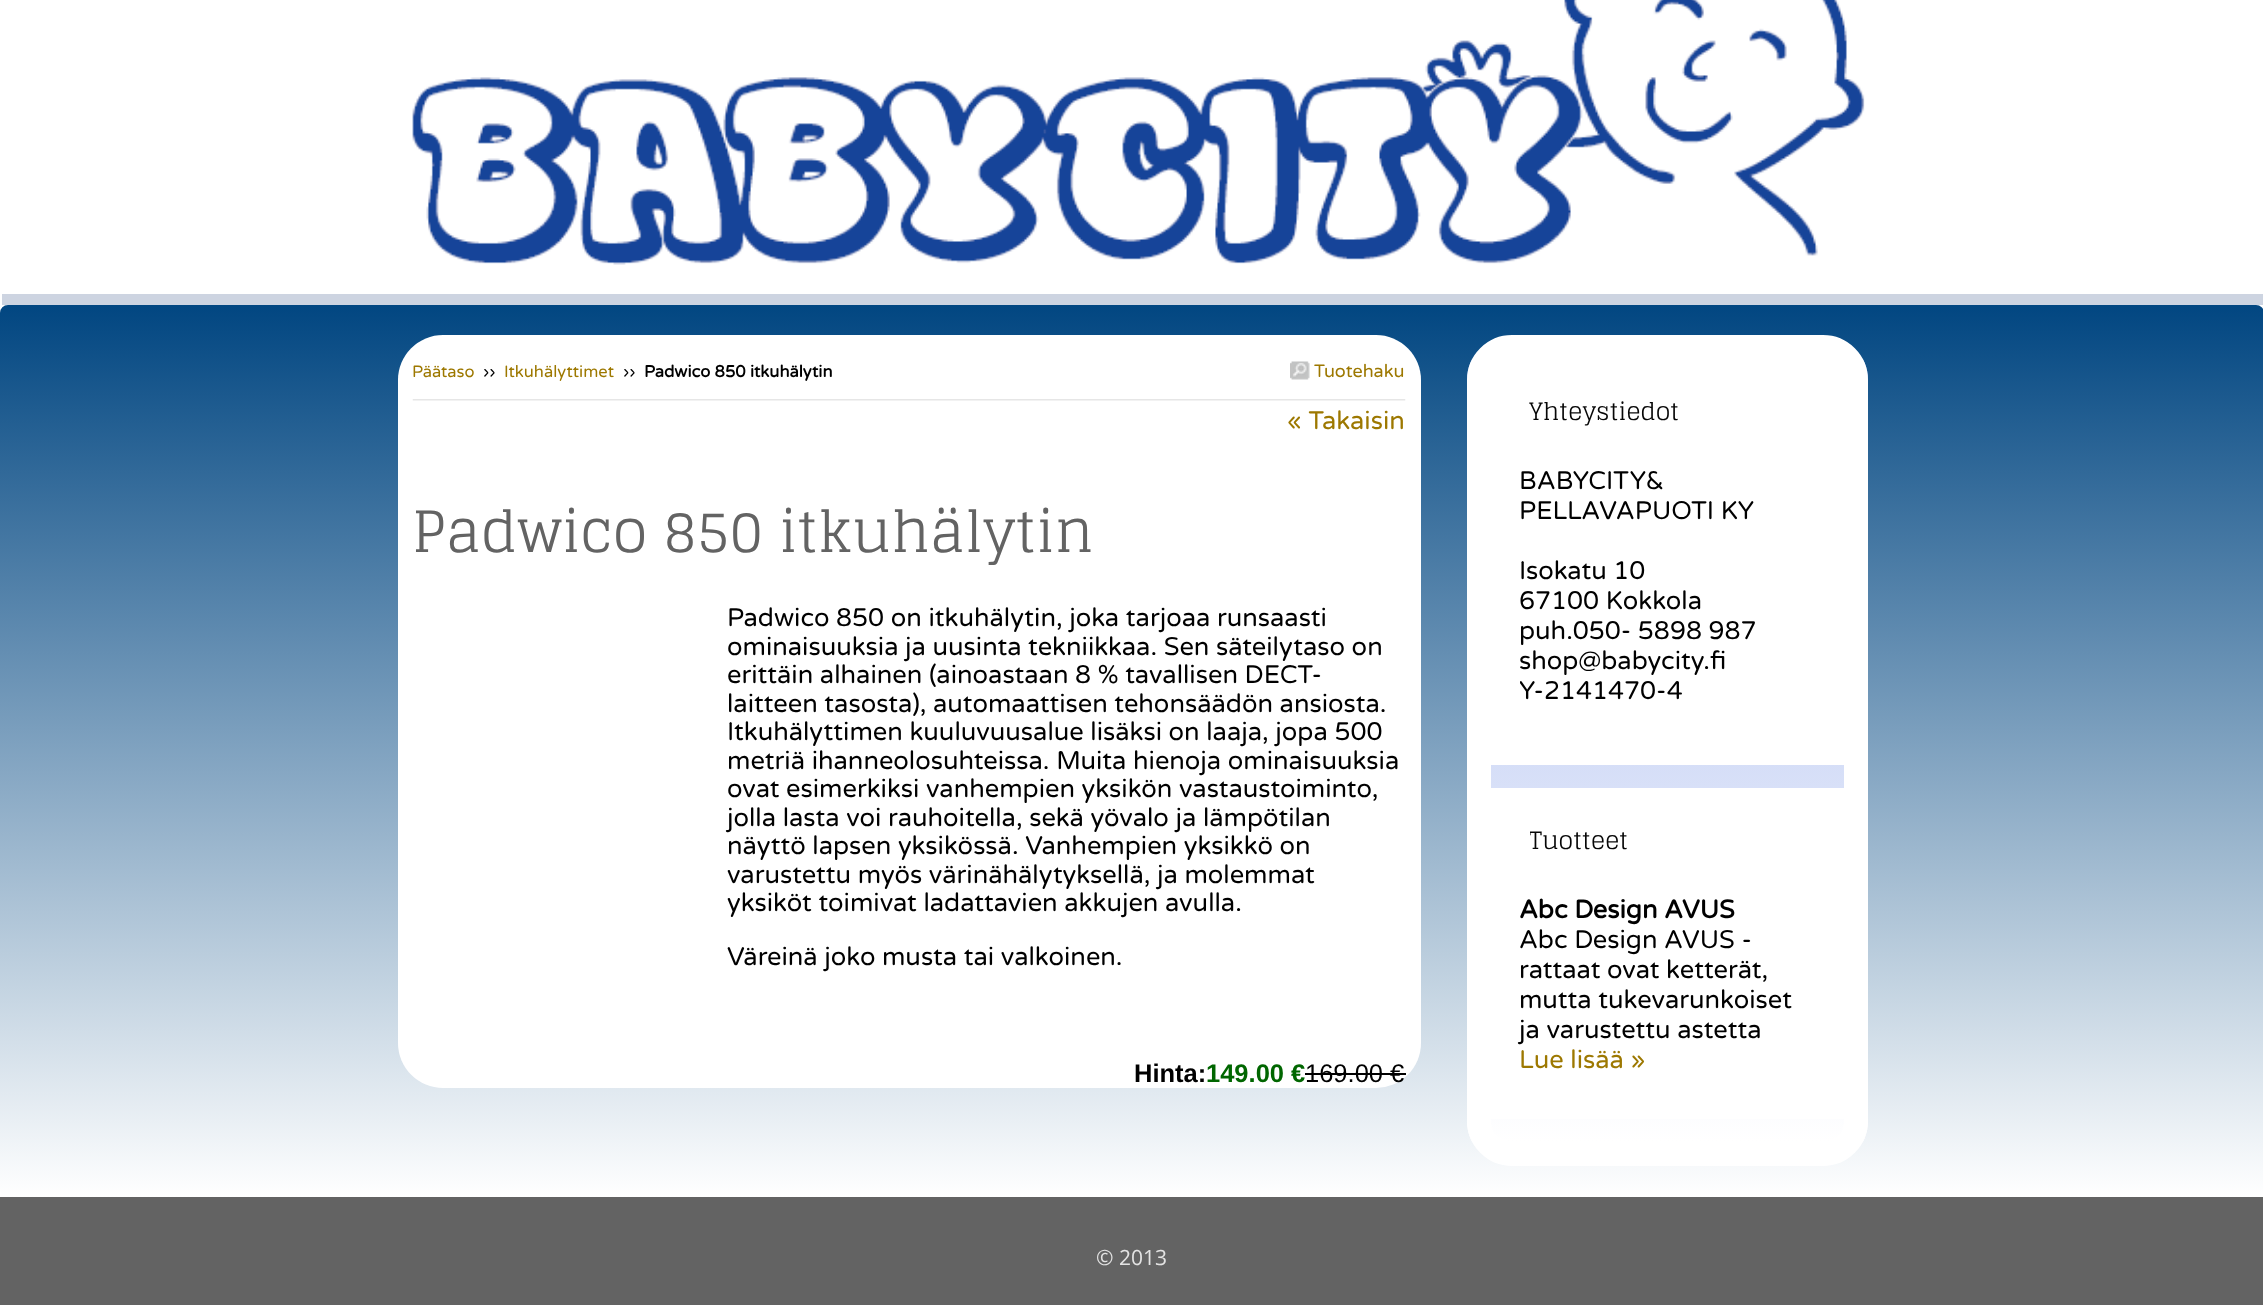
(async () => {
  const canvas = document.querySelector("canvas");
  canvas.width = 2263;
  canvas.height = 1305;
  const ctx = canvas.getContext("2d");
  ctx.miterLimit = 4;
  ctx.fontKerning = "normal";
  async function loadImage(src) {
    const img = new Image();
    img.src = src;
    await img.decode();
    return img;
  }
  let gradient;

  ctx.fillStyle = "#ffffff";
  ctx.fillRect(0, 0, 2263, 1305);
  ctx.fillStyle = "#cdd4e1";
  ctx.fillRect(2, 294, 2261, 11);
  ctx.drawImage(await loadImage("img/1.png"), 412, 0, 1453, 265);
  gradient = ctx.createLinearGradient(1132, 304, 1132, 1197);
  gradient.addColorStop(0, "#014681");
  gradient.addColorStop(1, "#ffffff");
  ctx.fillStyle = gradient;
  ctx.beginPath();
  ctx.roundRect(0, 305, 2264, 892, 8);
  ctx.fill();
  ctx.fillStyle = "#ffffff";
  ctx.beginPath();
  ctx.roundRect(398, 335, 1023, 753, 45);
  ctx.fill();
  ctx.drawImage(await loadImage("img/2.png"), 1290, 361, 20, 19);
  ctx.drawImage(await loadImage("img/3.png"), 412, 399, 994, 2);
  ctx.fillStyle = "#000000";
  ctx.fillRect(1305, 1073, 101, 2);
  ctx.save();
  ctx.beginPath();
  ctx.roundRect(1467, 335, 401, 831, 45);
  ctx.clip();
  gradient = ctx.createLinearGradient(1667, 359, 1667, 1142);
  gradient.addColorStop(0, "#a9bbef");
  gradient.addColorStop(1, "#ffffff");
  ctx.fillStyle = gradient;
  ctx.fillRect(1467, 359, 401, 783);
  ctx.restore();
  ctx.beginPath();
  ctx.roundRect(1479, 347, 377, 807, 33);
  ctx.strokeStyle = "#ffffff";
  ctx.lineWidth = 24;
  ctx.stroke();
  for (const [x, y, w, h, color] of [
    [1491, 359, 353, 406, "#ffffff"],
    [1491, 788, 353, 331, "#ffffff"],
    [0, 1197, 2263, 108, "#636363"],
  ]) {
    ctx.fillStyle = color;
    ctx.fillRect(x, y, w, h);
  }
  ctx.font = "16.5px Varela Round";
  ctx.fillStyle = "#9d7800";
  ctx.fillText("Päätaso", 412, 377);
  ctx.fillStyle = "#000000";
  ctx.fillText("››", 483, 377);
  ctx.fillStyle = "#9d7800";
  ctx.fillText("Itkuhälyttimet", 504, 377);
  ctx.fillStyle = "#000000";
  ctx.fillText("››", 623, 377);
  ctx.font = "bold 16.5px Varela Round";
  ctx.fillText("Padwico 850 itkuhälytin", 644, 377);
  ctx.font = "18px Varela Round";
  ctx.fillStyle = "#9d7800";
  ctx.fillText("Tuotehaku", 1314, 377);
  ctx.font = "25.5px Varela Round";
  ctx.fillText("« Takaisin", 1287, 429);
  ctx.font = "57px Glegoo";
  ctx.fillStyle = "#636363";
  ctx.fillText("Padwico 850 itkuhälytin", 412, 552);
  ctx.font = "25.5px Varela Round";
  ctx.fillStyle = "#000000";
  for (const [text, x, y] of [
    ["Padwico 850 on itkuhälytin, joka tarjoaa runsaasti", 727, 626],
    ["ominaisuuksia ja uusinta tekniikkaa. Sen säteilytaso on", 727, 655],
    ["erittäin alhainen (ainoastaan 8 % tavallisen DECT-", 727, 683],
    ["laitteen tasosta), automaattisen tehonsäädön ansiosta.", 727, 712],
    ["Itkuhälyttimen kuuluvuusalue lisäksi on laaja, jopa 500", 727, 740],
    ["metriä ihanneolosuhteissa. Muita hienoja ominaisuuksia", 727, 769],
    ["ovat esimerkiksi vanhempien yksikön vastaustoiminto,", 727, 797],
    ["jolla lasta voi rauhoitella, sekä yövalo ja lämpötilan", 727, 826],
    ["näyttö lapsen yksikössä. Vanhempien yksikkö on", 727, 854],
    ["varustettu myös värinähälytyksellä, ja molemmat", 727, 883],
    ["yksiköt toimivat ladattavien akkujen avulla.", 727, 911],
    ["Väreinä joko musta tai valkoinen.", 727, 965],
  ]) {
    ctx.fillText(text, x, y);
  }
  ctx.font = "bold 25.5px Liberation Sans";
  ctx.fillText("Hinta:", 1134, 1082);
  ctx.fillStyle = "#006600";
  ctx.fillText("149.00 €", 1206, 1082);
  ctx.font = "25.5px Liberation Sans";
  ctx.fillStyle = "#000000";
  ctx.fillText("169.00 €", 1305, 1082);
  ctx.font = "24px Glegoo";
  ctx.fillStyle = "#060606";
  ctx.fillText("Yhteystiedot", 1529, 420);
  ctx.font = "25.5px Varela Round";
  ctx.fillStyle = "#000000";
  for (const [text, x, y] of [
    ["BABYCITY&", 1519, 489],
    ["PELLAVAPUOTI KY", 1519, 519],
    ["Isokatu 10", 1519, 579],
    ["67100 Kokkola", 1519, 609],
    ["puh.050- 5898 987", 1519, 639],
    ["shop@babycity.fi", 1519, 669],
  ]) {
    ctx.fillText(text, x, y);
  }
  ctx.save();
  ctx.beginPath();
  ctx.rect(1520, 459, 295, 255);
  ctx.clip();
  ctx.fillText("Y-2141470-4", 1519, 699);
  ctx.restore();
  ctx.save();
  ctx.beginPath();
  ctx.rect(1530, 815, 275, 51);
  ctx.clip();
  ctx.font = "24px Glegoo";
  ctx.fillStyle = "#060606";
  ctx.fillText("Tuotteet", 1529, 849);
  ctx.restore();
  ctx.font = "bold 25.5px Varela Round";
  ctx.fillText("Abc Design AVUS", 1519, 918);
  ctx.font = "25.5px Varela Round";
  for (const [text, x, y] of [
    ["Abc Design AVUS -", 1519, 948],
    ["rattaat ovat ketterät,", 1519, 978],
    ["mutta tukevarunkoiset", 1519, 1008],
    ["ja varustettu astetta", 1519, 1038],
  ]) {
    ctx.fillText(text, x, y);
  }
  ctx.fillStyle = "#9d7800";
  ctx.fillText("Lue lisää »", 1519, 1068);
  ctx.font = "21px Open Sans";
  ctx.fillStyle = "#e3e3e3";
  ctx.fillText("© 2013", 1096, 1265);
})();
